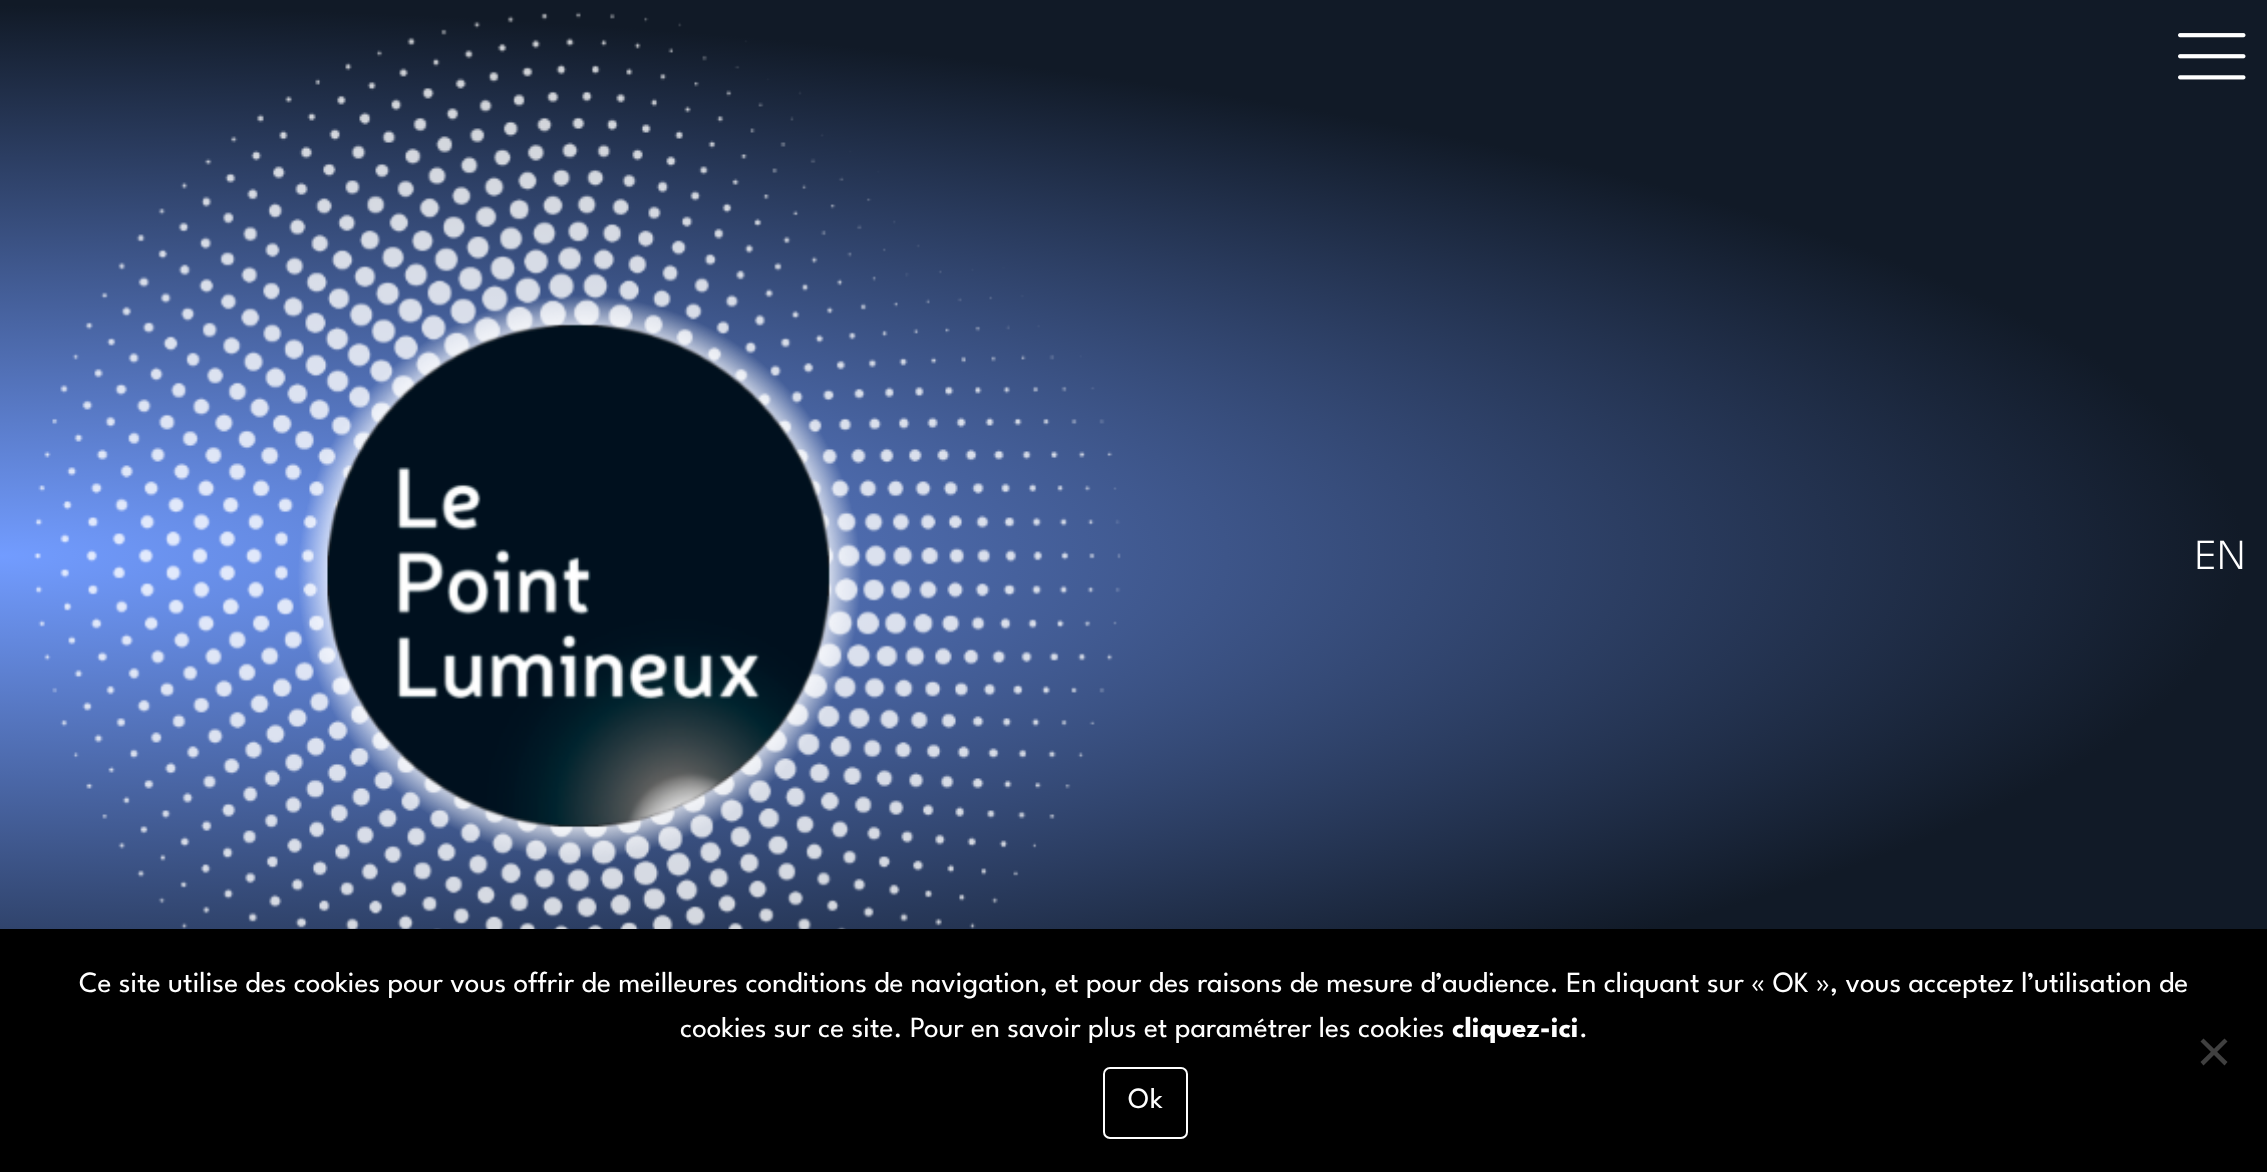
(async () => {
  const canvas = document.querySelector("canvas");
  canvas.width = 2267;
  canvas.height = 1172;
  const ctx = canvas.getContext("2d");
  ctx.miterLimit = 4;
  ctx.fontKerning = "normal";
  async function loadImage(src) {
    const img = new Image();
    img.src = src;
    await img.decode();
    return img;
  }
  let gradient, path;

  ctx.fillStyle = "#ffffff";
  ctx.fillRect(0, 0, 2267, 1172);
  gradient = ctx.createRadialGradient(0, 2268.56, 0, 0, 2268.56, 3207);
  gradient.addColorStop(0, "#729cff");
  gradient.addColorStop(0.7, "#111a27");
  ctx.fillStyle = gradient;
  ctx.beginPath();
  ctx.rect(0, 0, 2267, 929);
  ctx.save();
  ctx.clip();
  ctx.scale(1, 786 / 3207);
  ctx.fillRect(0, 0, 2267, 4782);
  ctx.restore();
  ctx.drawImage(await loadImage("img/1.png"), 34, 12, 1087, 917);
  ctx.drawImage(await loadImage("img/2.png"), 2178, 33, 68, 47);
  ctx.fillStyle = "#000000";
  ctx.fillRect(0, 929, 2267, 243);
  ctx.fillStyle = "#404040";
  path = new Path2D("M2224.5 1038.5L2227.5 1041.5L2203.5 1065.5L2200.5 1062Z");
  ctx.fill(path);
  path = new Path2D("M2200.5 1041.5L2203.5 1038.5L2227.5 1062L2224.5 1065.5Z");
  ctx.fill(path);
  ctx.beginPath();
  ctx.roundRect(1104, 1068, 83, 70, 6);
  ctx.strokeStyle = "#ffffff";
  ctx.lineWidth = 2;
  ctx.stroke();
  ctx.font = "300 43px League Spartan";
  ctx.fillStyle = "#ffffff";
  ctx.fillText("EN", 2195, 569);
  ctx.font = "29.25px League Spartan";
  ctx.fillText("Ce site utilise des cookies pour vous offrir de meilleures conditions de navigation, et pour des raisons de mesure d’audience. En cliquant sur « OK », vous acceptez l’utilisation de", 79, 992);
  ctx.fillText("cookies sur ce site. Pour en savoir plus et paramétrer les cookies", 680, 1037);
  ctx.font = "bold 29.25px League Spartan";
  ctx.fillText("cliquez-ici", 1452, 1037);
  ctx.font = "29.25px League Spartan";
  ctx.fillText(".", 1579, 1037);
  ctx.letterSpacing = "1px";
  ctx.fillText("Ok", 1128, 1108);
})();
